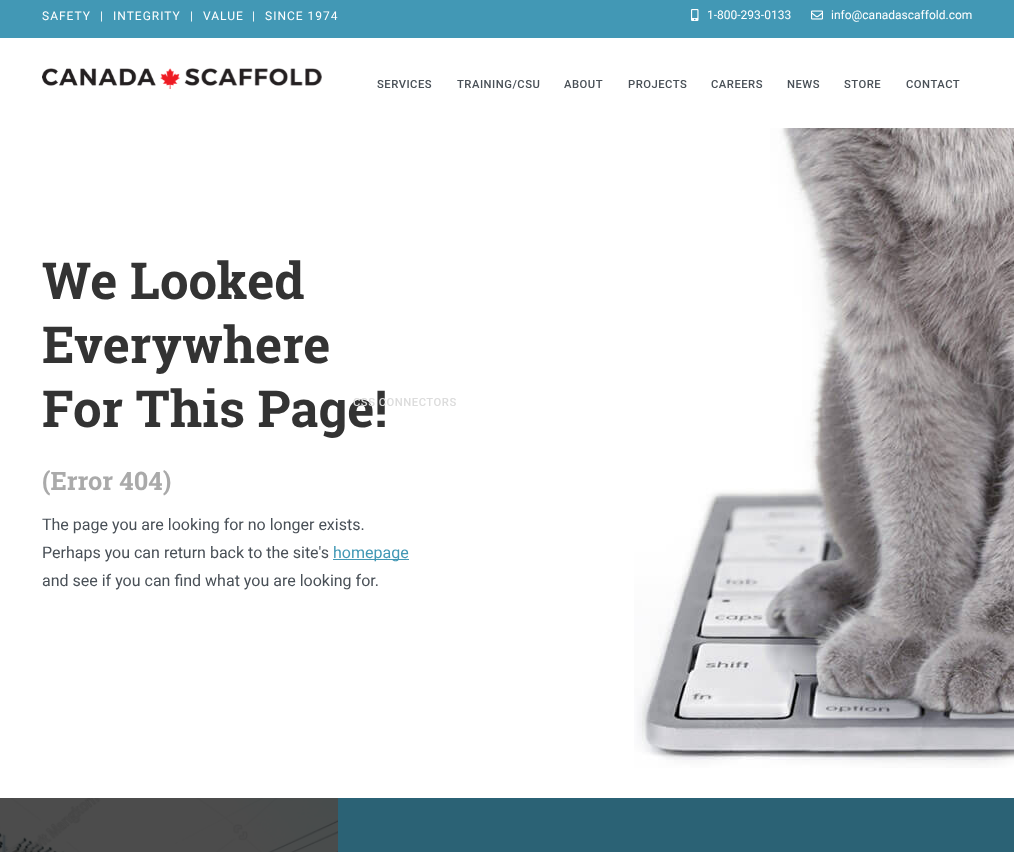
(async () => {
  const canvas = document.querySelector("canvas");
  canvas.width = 1014;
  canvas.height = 852;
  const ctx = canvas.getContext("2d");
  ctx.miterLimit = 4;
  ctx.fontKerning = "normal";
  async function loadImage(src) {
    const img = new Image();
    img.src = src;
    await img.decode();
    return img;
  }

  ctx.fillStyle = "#ffffff";
  ctx.fillRect(0, 0, 1014, 852);
  ctx.fillStyle = "#4298b5";
  ctx.fillRect(0, 0, 1014, 38);
  ctx.drawImage(await loadImage("img/1.png"), 691, 9, 8, 12);
  ctx.drawImage(await loadImage("img/2.png"), 811, 10, 12, 10);
  ctx.drawImage(await loadImage("img/3.png"), 42, 68, 280, 21);
  ctx.fillRect(333, 559, 76, 1);
  ctx.drawImage(await loadImage("img/4.png"), 634, 128, 380, 640);
  ctx.fillStyle = "#2b6275";
  ctx.fillRect(338, 798, 676, 54);
  ctx.drawImage(await loadImage("img/5.png"), 0, 798, 338, 54);
  ctx.letterSpacing = "1px";
  ctx.font = "12px Roboto";
  ctx.fillStyle = "#ffffff";
  for (const [text, x, y] of [
    ["SAFETY", 42, 20],
    ["|", 100, 20],
    ["INTEGRITY", 113, 20],
    ["|", 190, 20],
    ["VALUE", 203, 20],
    ["|", 252, 20],
    ["SINCE 1974", 265, 20],
  ]) {
    ctx.fillText(text, x, y);
  }
  ctx.letterSpacing = "0px";
  ctx.fillText("1-800-293-0133", 707, 19);
  ctx.fillText("info@canadascaffold.com", 831, 19);
  ctx.letterSpacing = "0.5px";
  ctx.font = "500 11.25px Roboto";
  ctx.fillStyle = "#495057";
  for (const [text, x, y] of [
    ["SERVICES", 377, 88],
    ["TRAINING/CSU", 457, 88],
    ["ABOUT", 564, 88],
    ["PROJECTS", 628, 88],
    ["CAREERS", 711, 88],
    ["NEWS", 787, 88],
    ["STORE", 844, 88],
    ["CONTACT", 906, 88],
  ]) {
    ctx.fillText(text, x, y);
  }
  ctx.letterSpacing = "0px";
  ctx.font = "bold 51px Roboto Slab";
  ctx.fillStyle = "#333333";
  for (const [text, x, y] of [
    ["We Looked", 42, 299],
    ["Everywhere", 42, 363],
    ["For This Page!", 42, 427],
  ]) {
    ctx.fillText(text, x, y);
  }
  ctx.letterSpacing = "0.5px";
  ctx.font = "500 11.25px Roboto";
  ctx.fillStyle = "#dcdcdc";
  ctx.fillText("CSS CONNECTORS", 353, 406);
  ctx.letterSpacing = "0px";
  ctx.font = "bold 25.5px Roboto Slab";
  ctx.fillStyle = "#aaaaaa";
  ctx.fillText("(Error 404)", 42, 490);
  ctx.font = "16px Roboto";
  ctx.fillStyle = "#495057";
  ctx.fillText("The page you are looking for no longer exists.", 42, 530);
  ctx.fillText("Perhaps you can return back to the site's", 42, 558);
  ctx.fillStyle = "#4298b5";
  ctx.fillText("homepage", 333, 558);
  ctx.fillStyle = "#495057";
  ctx.fillText("and see if you can find what you are looking for.", 42, 586);
})();
